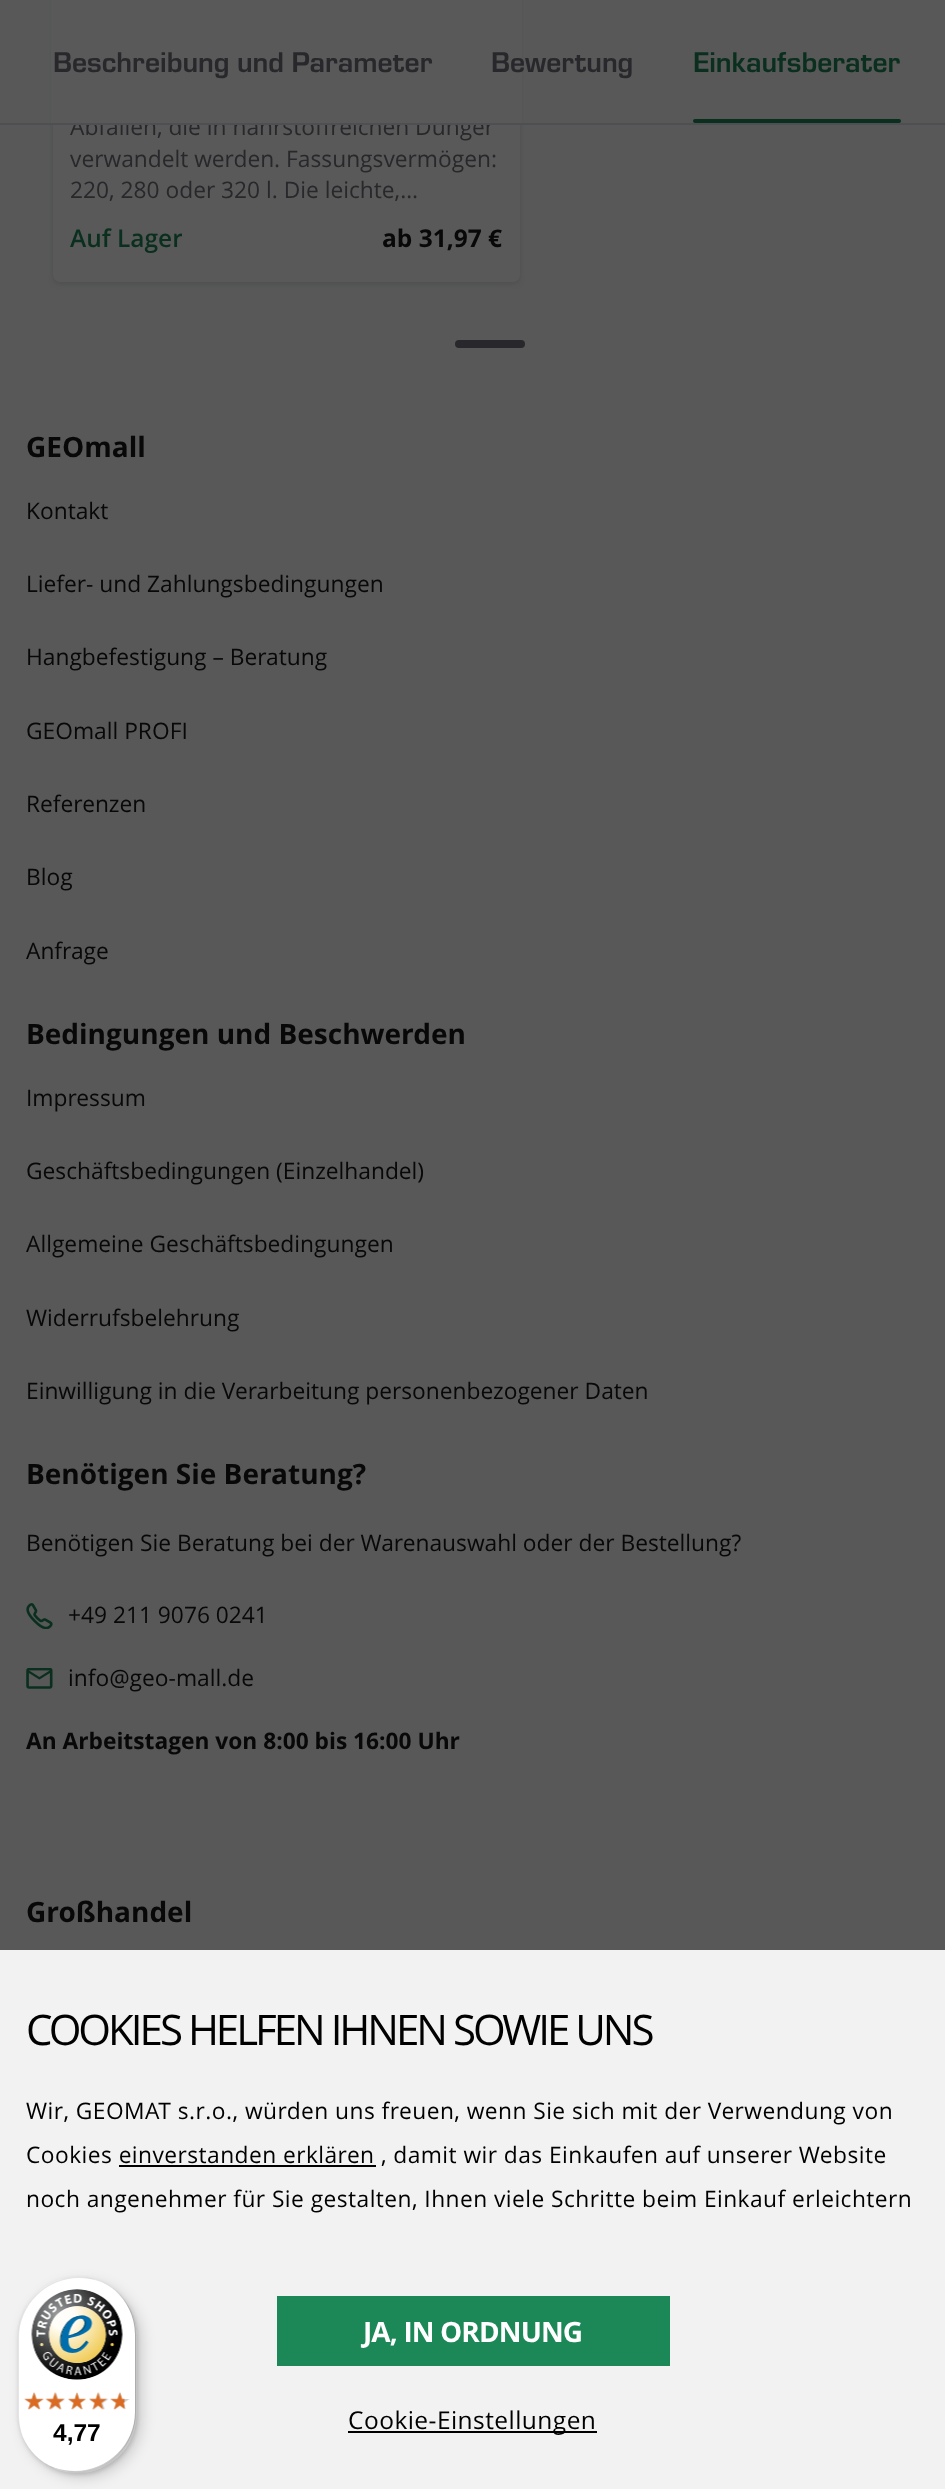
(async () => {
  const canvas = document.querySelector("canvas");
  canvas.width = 945;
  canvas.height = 2489;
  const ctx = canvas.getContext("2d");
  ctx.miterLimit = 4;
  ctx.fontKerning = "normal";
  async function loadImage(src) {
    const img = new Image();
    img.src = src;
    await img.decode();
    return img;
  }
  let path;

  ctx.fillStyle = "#585858";
  ctx.fillRect(0, 0, 945, 2489);
  ctx.fillStyle = "#0a2f1e";
  ctx.beginPath();
  ctx.roundRect(693, 119, 208, 4, 2);
  ctx.fill();
  ctx.fillStyle = "#4e4f52";
  ctx.filter = "blur(2.5px)";
  ctx.beginPath();
  ctx.roundRect(53, -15, 467, 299, 7);
  ctx.fill();
  ctx.filter = "none";
  ctx.fillStyle = "#595959";
  ctx.beginPath();
  ctx.roundRect(53, -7, 467, 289, 7);
  ctx.fill();
  ctx.fillStyle = "#28282c";
  ctx.beginPath();
  ctx.roundRect(455, 340, 70, 8, 4);
  ctx.fill();
  ctx.drawImage(await loadImage("img/1.png"), 26, 1603, 27, 26);
  ctx.drawImage(await loadImage("img/2.png"), 26, 1668, 27, 21);
  for (const [x, y, w, h, color] of [
    [0, 1950, 945, 539, "#f2f2f2"],
    [119, 2165, 257, 2, "#000000"],
    [277, 2296, 393, 70, "#1c8757"],
    [348, 2431, 249, 2, "#000000"],
  ]) {
    ctx.fillStyle = color;
    ctx.fillRect(x, y, w, h);
  }
  ctx.fillStyle = "rgba(0, 0, 0, 0.15)";
  ctx.filter = "blur(7px)";
  ctx.beginPath();
  ctx.roundRect(23, 2282, 119, 196, 59.5);
  ctx.fill();
  ctx.filter = "none";
  ctx.filter = "blur(2px)";
  ctx.beginPath();
  ctx.roundRect(19, 2279, 119, 196, 59.5);
  ctx.fill();
  ctx.filter = "none";
  ctx.fillStyle = "#ffffff";
  ctx.beginPath();
  ctx.roundRect(18, 2277, 119, 196, 59.5);
  ctx.fill();
  ctx.fillStyle = "rgba(0, 0, 0, 0.1)";
  path = new Path2D("M79 2278C94 2278 107 2283 117 2292C106 2283 93 2277 78 2277C45 2277 18 2304 18 2336V2414C18 2429 24 2442 33 2453C24 2443 19 2430 19 2415V2338C19 2305 46 2278 79 2278Z");
  ctx.fill(path);
  ctx.fillStyle = "rgba(0, 0, 0, 0.2)";
  path = new Path2D("M37 2457C48 2467 62 2473 78 2473C110 2473 137 2446 137 2414V2336C137 2318 129 2302 115 2291C127 2301 135 2317 135 2334V2412C135 2444 108 2471 75 2471C60 2471 47 2466 37 2457Z");
  ctx.fill(path);
  ctx.fillStyle = "rgba(50, 50, 50, 0.2)";
  path = new Path2D("M44 2463C54 2469 65 2473 78 2473C110 2473 137 2446 137 2414V2336C137 2317 127 2299 113 2288C126 2299 135 2316 135 2335V2412C135 2445 109 2472 76 2472C64 2472 53 2469 44 2463Z");
  ctx.fill(path);
  ctx.fillStyle = "rgba(255, 255, 255, 0.3)";
  path = new Path2D("M38 2458C49 2467 62 2473 78 2473C110 2473 137 2446 137 2414V2336C137 2317 127 2299 112 2288C127 2299 136 2316 136 2335V2412C136 2445 109 2472 76 2472C61 2472 48 2467 38 2458Z");
  ctx.fill(path);
  ctx.drawImage(await loadImage("img/3.png"), 31, 2289, 92, 91);
  ctx.drawImage(await loadImage("img/4.png"), 24, 2393, 20, 16);
  ctx.drawImage(await loadImage("img/5.png"), 47, 2392, 18, 18);
  ctx.drawImage(await loadImage("img/6.png"), 68, 2393, 18, 16);
  ctx.drawImage(await loadImage("img/7.png"), 89, 2392, 20, 18);
  ctx.drawImage(await loadImage("img/8.png"), 110, 2393, 20, 16);
  ctx.drawImage(await loadImage("img/9.png"), 24, 2392, 20, 18);
  ctx.drawImage(await loadImage("img/10.png"), 45, 2392, 20, 18);
  ctx.drawImage(await loadImage("img/11.png"), 68, 2392, 18, 18);
  ctx.drawImage(await loadImage("img/12.png"), 89, 2392, 18, 18);
  ctx.drawImage(await loadImage("img/13.png"), 110, 2392, 15, 18);
  ctx.font = "bold 29.75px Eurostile";
  ctx.fillStyle = "#0a2f1e";
  ctx.fillText("Einkaufsberater", 693, 72);
  ctx.font = "22.75px Open Sans";
  ctx.fillStyle = "#28282c";
  ctx.fillText("Abfällen, die in nährstoffreichen Dünger", 70, 135);
  ctx.fillStyle = "#595959";
  ctx.fillRect(51, 0, 471, 123);
  ctx.font = "bold 29.75px Eurostile";
  ctx.fillStyle = "#28282c";
  ctx.fillText("Bewertung", 491, 72);
  ctx.fillText("Beschreibung und Parameter", 53, 72);
  ctx.fillStyle = "#4e4f52";
  ctx.fillRect(0, 123, 945, 2);
  ctx.font = "22.75px Open Sans";
  ctx.fillStyle = "#28282c";
  ctx.fillText("verwandelt werden. Fassungsvermögen:", 70, 167);
  ctx.fillText("220, 280 oder 320 l. Die leichte,…", 70, 198);
  ctx.save();
  ctx.beginPath();
  ctx.rect(70, 219, 112, 37);
  ctx.clip();
  ctx.font = "600 24.5px Open Sans";
  ctx.fillStyle = "#0a2f1e";
  ctx.fillText("Auf Lager", 70, 247);
  ctx.restore();
  ctx.font = "bold 24.5px Open Sans";
  ctx.fillStyle = "#080808";
  ctx.fillText("ab 31,97 €", 382, 247);
  ctx.font = "bold 28px Open Sans";
  ctx.fillText("GEOmall", 26, 457);
  ctx.font = "22.75px Open Sans";
  for (const [text, x, y] of [
    ["Kontakt", 26, 519],
    ["Liefer- und Zahlungsbedingungen", 26, 592],
    ["Hangbefestigung – Beratung", 26, 665],
    ["GEOmall PROFI", 26, 739],
    ["Referenzen", 26, 812],
    ["Blog", 26, 885],
    ["Anfrage", 26, 959],
  ]) {
    ctx.fillText(text, x, y);
  }
  ctx.font = "bold 28px Open Sans";
  ctx.fillText("Bedingungen und Beschwerden", 26, 1044);
  ctx.font = "22.75px Open Sans";
  for (const [text, x, y] of [
    ["Impressum", 26, 1106],
    ["Geschäftsbedingungen (Einzelhandel)", 26, 1179],
    ["Allgemeine Geschäftsbedingungen", 26, 1252],
    ["Widerrufsbelehrung", 26, 1326],
    ["Einwilligung in die Verarbeitung personenbezogener Daten", 26, 1399],
  ]) {
    ctx.fillText(text, x, y);
  }
  ctx.font = "bold 28px Open Sans";
  ctx.fillText("Benötigen Sie Beratung?", 26, 1484);
  ctx.font = "22.75px Open Sans";
  for (const [text, x, y] of [
    ["Benötigen Sie Beratung bei der Warenauswahl oder der Bestellung?", 26, 1551],
    ["+49 211 9076 0241", 68, 1623],
    ["info@geo-mall.de", 68, 1686],
  ]) {
    ctx.fillText(text, x, y);
  }
  ctx.font = "bold 22.75px Open Sans";
  ctx.fillText("An Arbeitstagen von 8:00 bis 16:00 Uhr", 26, 1749);
  ctx.font = "bold 28px Open Sans";
  ctx.fillText("Großhandel", 26, 1922);
  ctx.letterSpacing = "-3px";
  ctx.font = "42px Open Sans";
  ctx.fillStyle = "#000000";
  ctx.fillText("COOKIES HELFEN IHNEN SOWIE UNS", 26, 2045);
  ctx.letterSpacing = "0.45px";
  ctx.font = "22.75px Open Sans";
  for (const [text, x, y] of [
    ["Wir, GEOMAT s.r.o., würden uns freuen, wenn Sie sich mit der Verwendung von", 26, 2119],
    ["Cookies einverstanden erklären , damit wir das Einkaufen auf unserer Website", 26, 2163],
    ["noch angenehmer für Sie gestalten, Ihnen viele Schritte beim Einkauf erleichtern", 26, 2207],
  ]) {
    ctx.fillText(text, x, y);
  }
  ctx.letterSpacing = "-0.9px";
  ctx.font = "bold 28px Open Sans";
  ctx.fillStyle = "#ffffff";
  ctx.fillText("JA, IN ORDNUNG", 363, 2342);
  ctx.letterSpacing = "0.45px";
  ctx.font = "24.5px Open Sans";
  ctx.fillStyle = "#000000";
  ctx.fillText("Cookie-Einstellungen", 348, 2429);
  ctx.letterSpacing = "0px";
  ctx.font = "bold 24.5px Liberation Sans";
  ctx.fillText("4,77", 53, 2441);
})();
